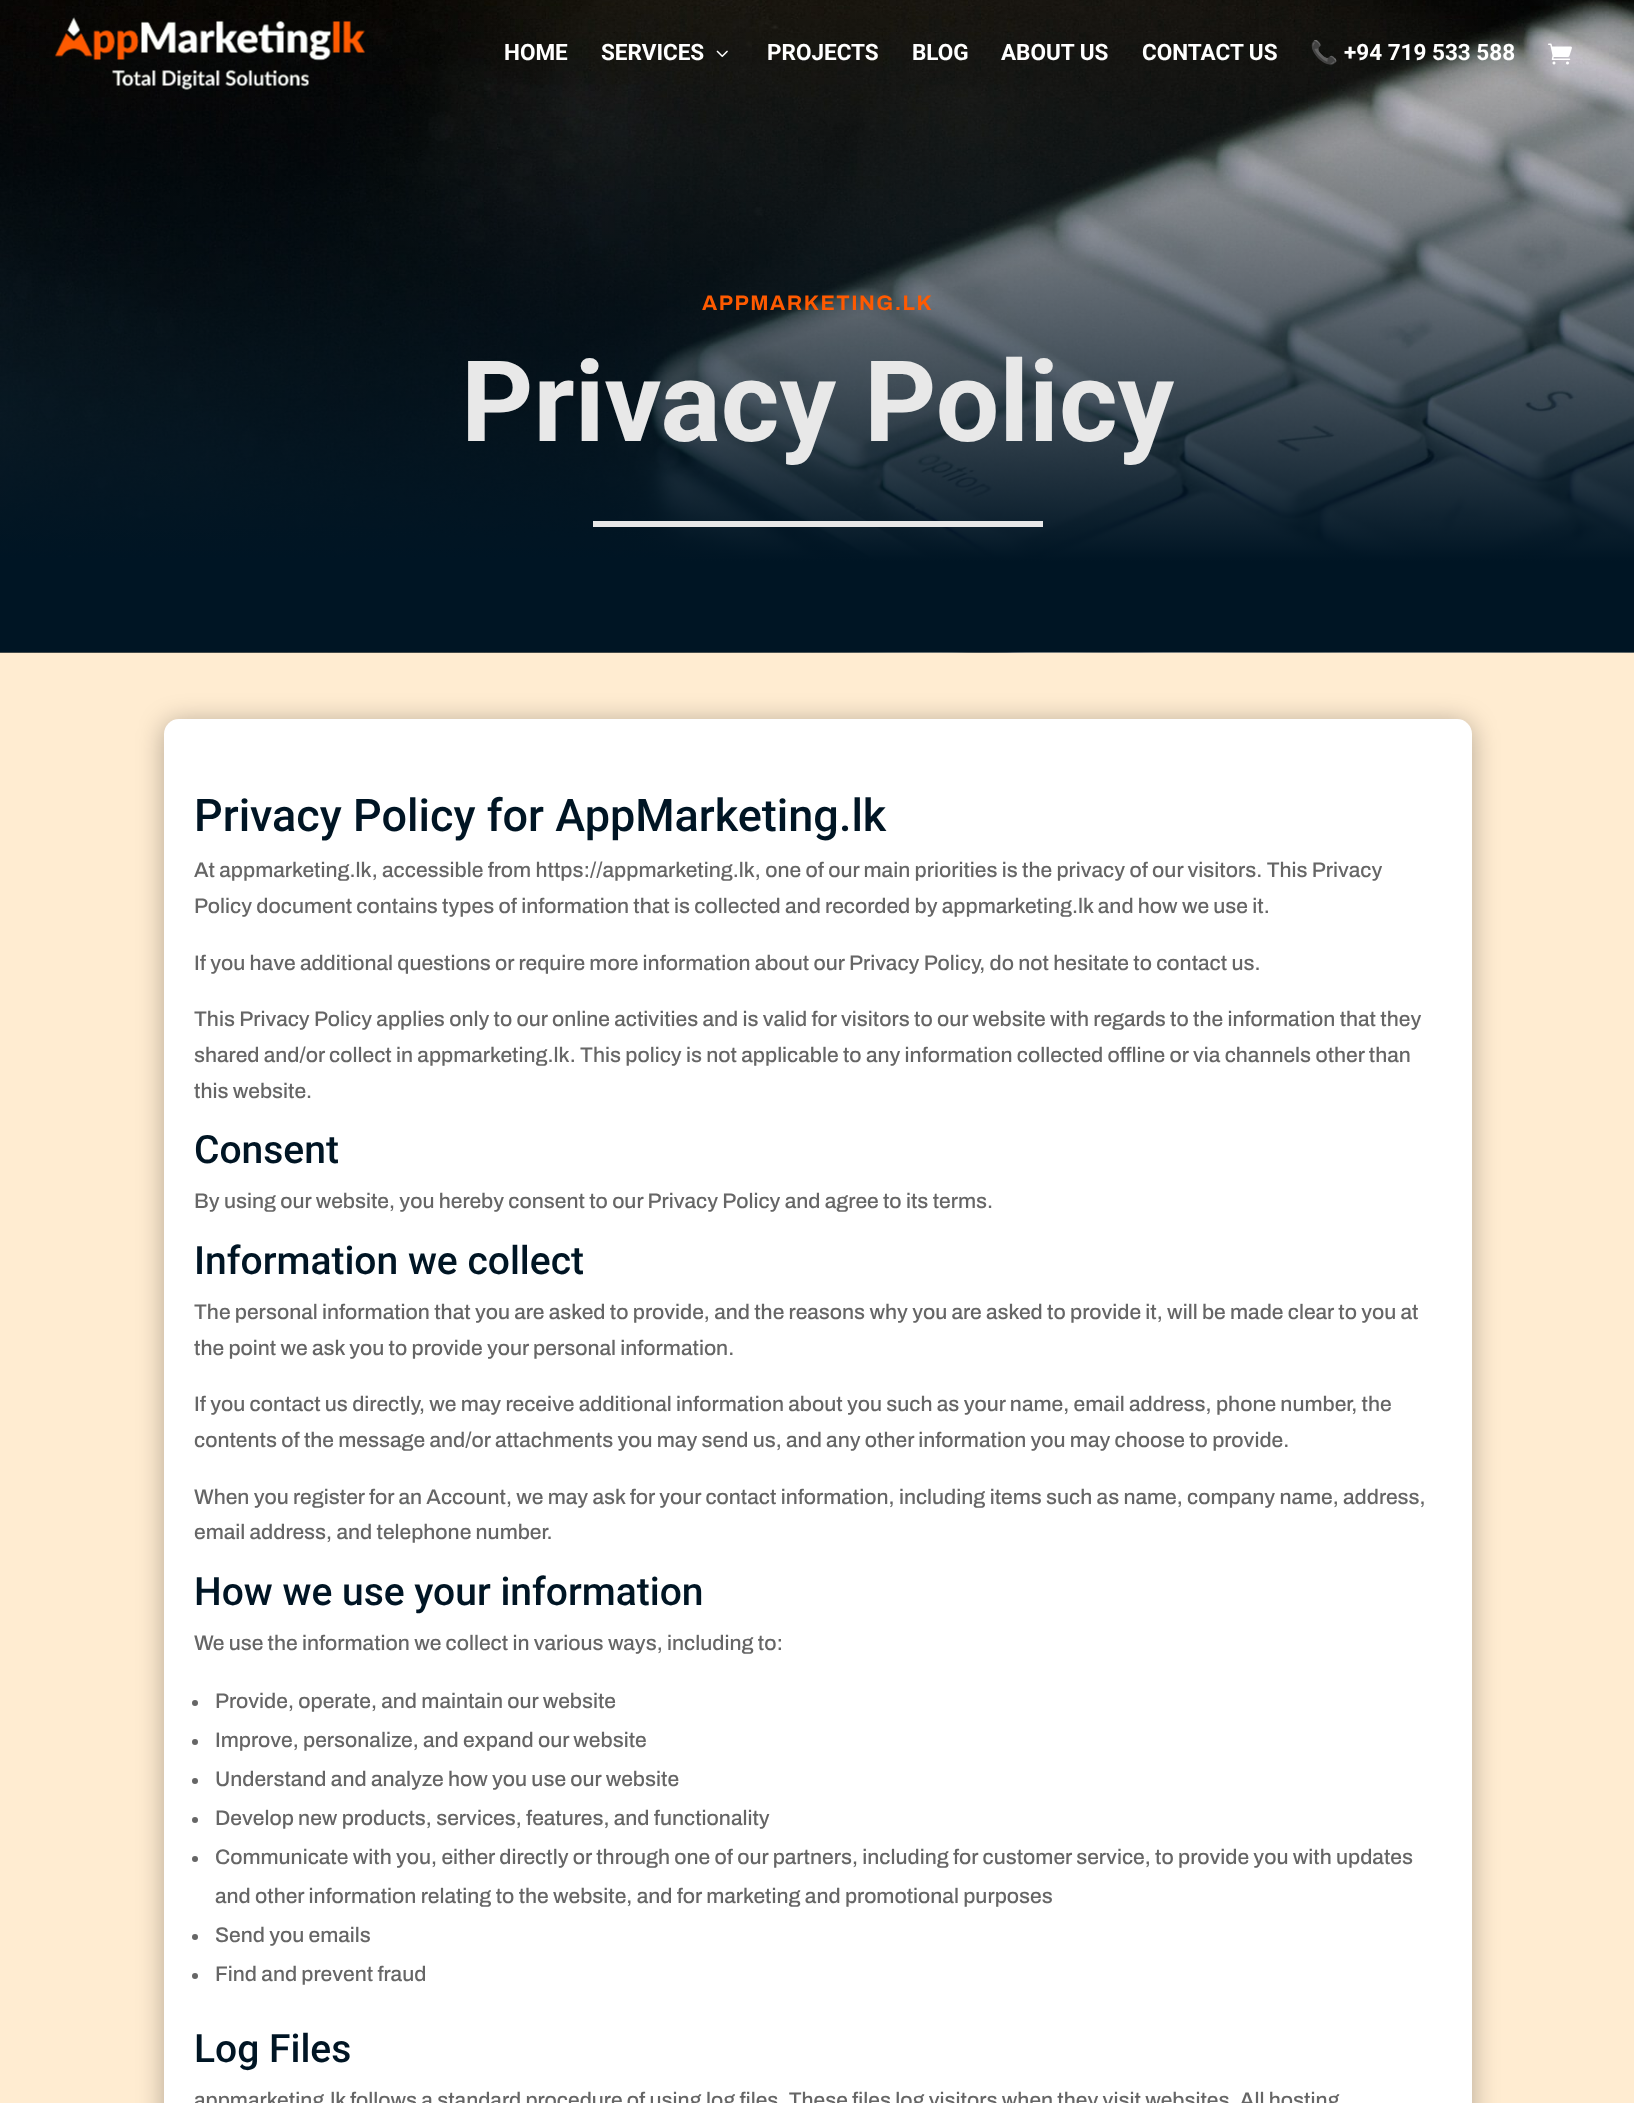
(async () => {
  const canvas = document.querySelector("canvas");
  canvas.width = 1634;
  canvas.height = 2103;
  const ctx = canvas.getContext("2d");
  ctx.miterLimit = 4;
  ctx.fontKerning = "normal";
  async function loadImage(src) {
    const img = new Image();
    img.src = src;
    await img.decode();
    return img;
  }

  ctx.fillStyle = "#ffecd1";
  ctx.fillRect(0, 0, 1634, 2103);
  ctx.drawImage(await loadImage("img/4.png"), 0, 0, 1634, 653);
  ctx.drawImage(await loadImage("img/1.png"), 55, 17, 310, 73);
  ctx.drawImage(await loadImage("img/2.png"), 716, 50, 12, 7);
  ctx.drawImage(await loadImage("img/3.png"), 1548, 43, 24, 22);
  ctx.fillStyle = "#e8e8e8";
  ctx.fillRect(593, 521, 450, 6);
  ctx.fillStyle = "rgba(0, 0, 0, 0.3)";
  ctx.filter = "blur(13.5px)";
  ctx.beginPath();
  ctx.roundRect(164, 722, 1308, 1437, 15);
  ctx.fill();
  ctx.filter = "none";
  ctx.fillStyle = "#ffffff";
  ctx.beginPath();
  ctx.roundRect(164, 719, 1308, 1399, 15);
  ctx.fill();
  ctx.fillStyle = "#666666";
  ctx.beginPath();
  ctx.arc(195, 1703, 3, 0, Math.PI * 2);
  ctx.fill();
  ctx.beginPath();
  ctx.arc(195, 1742, 3, 0, Math.PI * 2);
  ctx.fill();
  ctx.beginPath();
  ctx.arc(195, 1781, 3, 0, Math.PI * 2);
  ctx.fill();
  ctx.beginPath();
  ctx.arc(195, 1820, 3, 0, Math.PI * 2);
  ctx.fill();
  ctx.beginPath();
  ctx.arc(195, 1859, 3, 0, Math.PI * 2);
  ctx.fill();
  ctx.beginPath();
  ctx.arc(195, 1937, 3, 0, Math.PI * 2);
  ctx.fill();
  ctx.beginPath();
  ctx.arc(195, 1976, 3, 0, Math.PI * 2);
  ctx.fill();
  ctx.font = "bold 22.5px Roboto";
  ctx.fillStyle = "#ffffff";
  for (const [text, x, y] of [
    ["HOME", 504, 60],
    ["SERVICES", 601, 60],
    ["PROJECTS", 767, 60],
    ["BLOG", 912, 60],
    ["ABOUT US", 1001, 60],
    ["CONTACT US", 1142, 60],
  ]) {
    ctx.fillText(text, x, y);
  }
  ctx.font = "bold 22.5px Noto Color Emoji";
  ctx.fillText("📞", 1310, 60);
  ctx.font = "bold 22.5px Roboto";
  ctx.fillText("+94 719 533 588", 1344, 60);
  ctx.letterSpacing = "1.5px";
  ctx.font = "600 21px Archivo";
  ctx.fillStyle = "#ff5a00";
  ctx.fillText("APPMARKETING.LK", 702, 310);
  ctx.letterSpacing = "0px";
  ctx.font = "bold 112.5px Roboto";
  ctx.fillStyle = "#e8e8e8";
  ctx.fillText("Privacy Policy", 461, 441);
  ctx.font = "500 45px Roboto";
  ctx.fillStyle = "#001524";
  ctx.fillText("Privacy Policy for AppMarketing.lk", 194, 831);
  ctx.font = "600 21px 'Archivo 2'";
  ctx.fillStyle = "#666666";
  for (const [text, x, y] of [
    ["At appmarketing.lk, accessible from https://appmarketing.lk, one of our main priorities is the privacy of our visitors. This Privacy", 194, 877],
    ["Policy document contains types of information that is collected and recorded by appmarketing.lk and how we use it.", 194, 913],
    ["If you have additional questions or require more information about our Privacy Policy, do not hesitate to contact us.", 194, 970],
    ["This Privacy Policy applies only to our online activities and is valid for visitors to our website with regards to the information that they", 194, 1026],
    ["shared and/or collect in appmarketing.lk. This policy is not applicable to any information collected offline or via channels other than", 194, 1062],
    ["this website.", 194, 1098],
  ]) {
    ctx.fillText(text, x, y);
  }
  ctx.font = "500 39px Roboto";
  ctx.fillStyle = "#001524";
  ctx.fillText("Consent", 194, 1163);
  ctx.font = "600 21px 'Archivo 2'";
  ctx.fillStyle = "#666666";
  ctx.fillText("By using our website, you hereby consent to our Privacy Policy and agree to its terms.", 194, 1208);
  ctx.font = "500 39px Roboto";
  ctx.fillStyle = "#001524";
  ctx.fillText("Information we collect", 194, 1274);
  ctx.font = "600 21px 'Archivo 2'";
  ctx.fillStyle = "#666666";
  for (const [text, x, y] of [
    ["The personal information that you are asked to provide, and the reasons why you are asked to provide it, will be made clear to you at", 194, 1319],
    ["the point we ask you to provide your personal information.", 194, 1355],
    ["If you contact us directly, we may receive additional information about you such as your name, email address, phone number, the", 194, 1411],
    ["contents of the message and/or attachments you may send us, and any other information you may choose to provide.", 194, 1447],
    ["When you register for an Account, we may ask for your contact information, including items such as name, company name, address,", 194, 1504],
    ["email address, and telephone number.", 194, 1539],
  ]) {
    ctx.fillText(text, x, y);
  }
  ctx.font = "500 39px Roboto";
  ctx.fillStyle = "#001524";
  ctx.fillText("How we use your information", 194, 1605);
  ctx.font = "600 21px 'Archivo 2'";
  ctx.fillStyle = "#666666";
  for (const [text, x, y] of [
    ["We use the information we collect in various ways, including to:", 194, 1650],
    ["Provide, operate, and maintain our website", 215, 1708],
    ["Improve, personalize, and expand our website", 215, 1747],
    ["Understand and analyze how you use our website", 215, 1786],
    ["Develop new products, services, features, and functionality", 215, 1825],
    ["Communicate with you, either directly or through one of our partners, including for customer service, to provide you with updates", 215, 1864],
    ["and other information relating to the website, and for marketing and promotional purposes", 215, 1903],
    ["Send you emails", 215, 1942],
    ["Find and prevent fraud", 215, 1981],
  ]) {
    ctx.fillText(text, x, y);
  }
  ctx.font = "500 39px Roboto";
  ctx.fillStyle = "#001524";
  ctx.fillText("Log Files", 194, 2062);
  ctx.font = "600 21px 'Archivo 2'";
  ctx.fillStyle = "#666666";
  ctx.fillText("appmarketing.lk follows a standard procedure of using log files. These files log visitors when they visit websites. All hosting", 194, 2107);
})();
